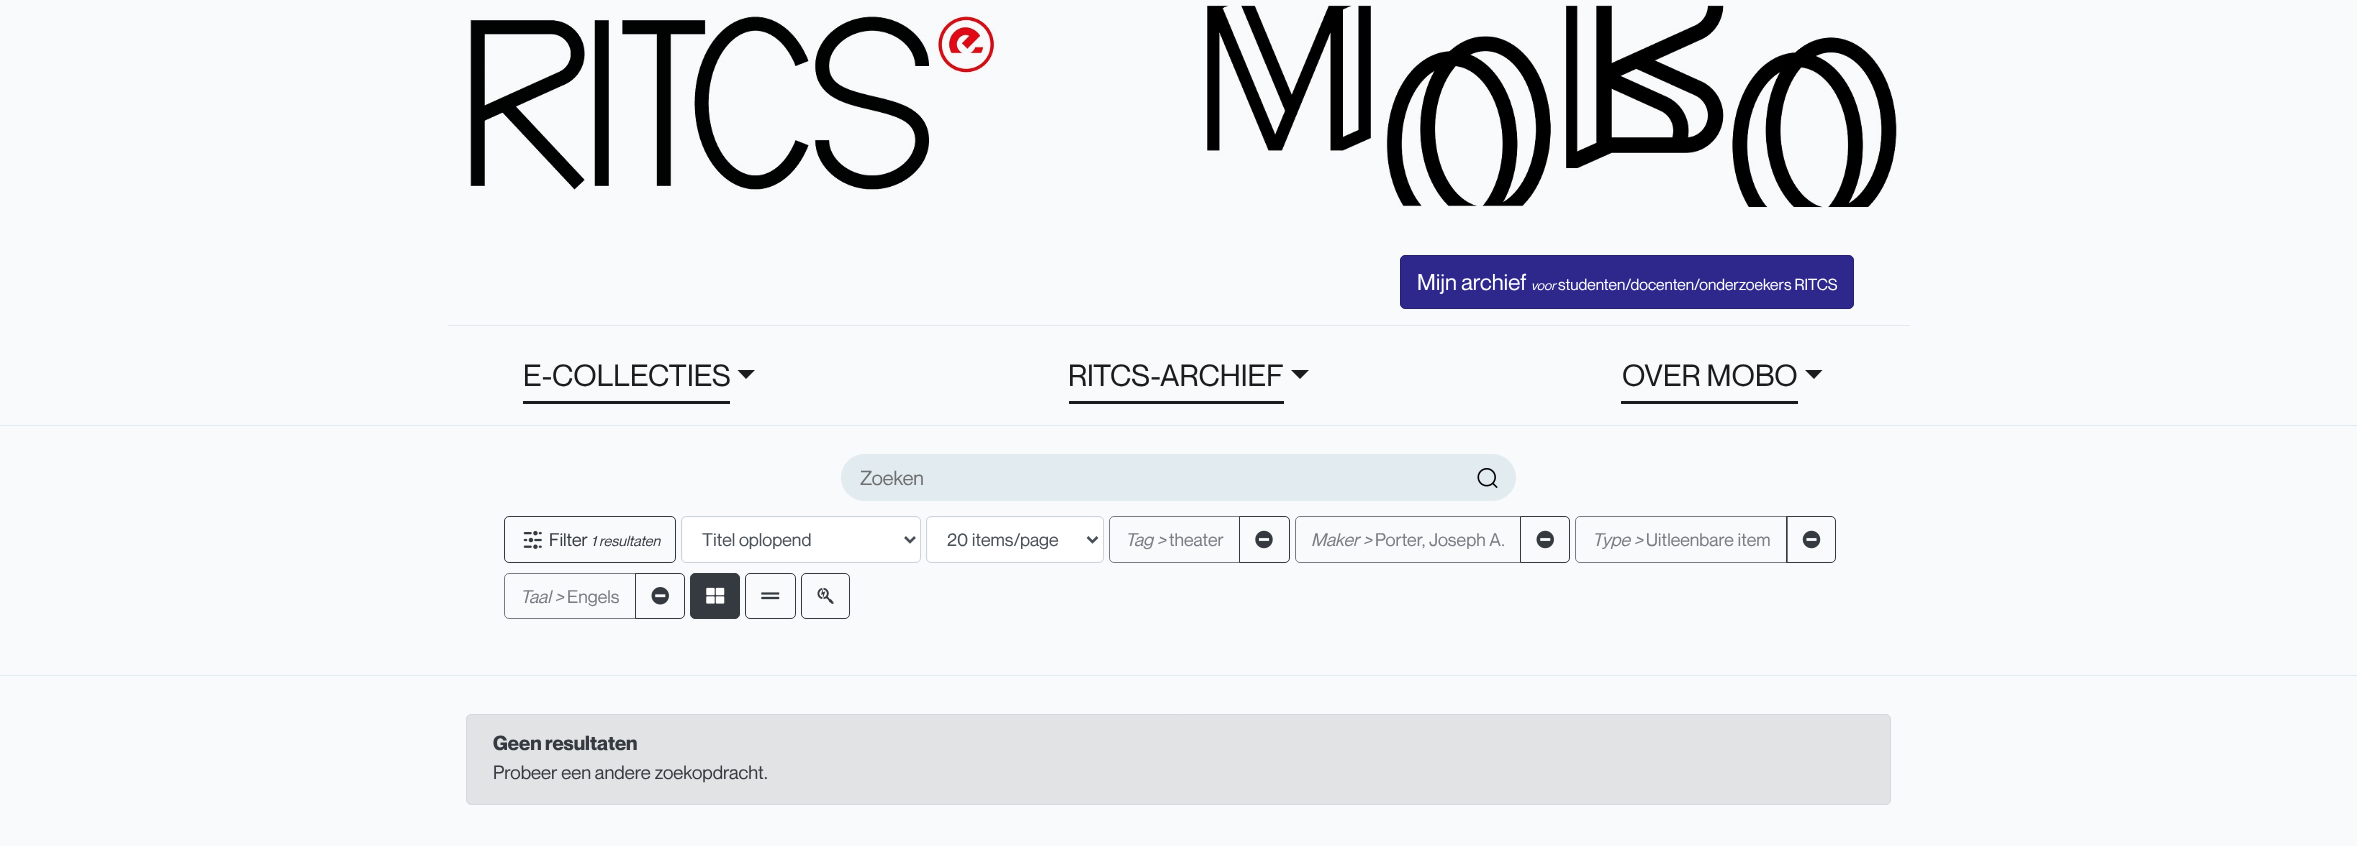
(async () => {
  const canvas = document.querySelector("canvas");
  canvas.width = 2357;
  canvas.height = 846;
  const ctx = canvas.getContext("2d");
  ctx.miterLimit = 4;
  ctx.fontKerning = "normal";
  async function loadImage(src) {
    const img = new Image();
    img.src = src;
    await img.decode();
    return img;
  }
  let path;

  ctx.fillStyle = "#f8fafc";
  ctx.fillRect(0, 0, 2357, 846);
  ctx.drawImage(await loadImage("img/1.png"), 470, 5, 1428, 203);
  ctx.fillStyle = "#e2ebef";
  ctx.fillRect(448, 325, 1462, 1);
  ctx.fillStyle = "#2e288c";
  ctx.beginPath();
  ctx.roundRect(1400.5, 255.5, 453, 53, 4.5);
  ctx.fill();
  ctx.strokeStyle = "#24206e";
  ctx.stroke();
  ctx.fillStyle = "#1c1b1b";
  ctx.fillRect(523, 401, 207, 3);
  path = new Path2D("M737.5 370H755L746 379Z");
  ctx.fill(path);
  ctx.fillRect(1069, 401, 215, 3);
  path = new Path2D("M1291 370H1309L1300 379Z");
  ctx.fill(path);
  ctx.fillRect(1621, 401, 177, 3);
  path = new Path2D("M1805 370H1822.5L1814 379Z");
  ctx.fill(path);
  ctx.fillStyle = "#e2ebef";
  ctx.fillRect(0, 425, 2357, 1);
  ctx.fillRect(0, 675, 2357, 1);
  ctx.beginPath();
  ctx.roundRect(841, 454, 675, 47, 23.5);
  ctx.fill();
  ctx.drawImage(await loadImage("img/2.png"), 1477, 468, 21, 20);
  ctx.beginPath();
  ctx.roundRect(504.5, 516.5, 171, 46, 4.5);
  ctx.strokeStyle = "#343a40";
  ctx.stroke();
  ctx.drawImage(await loadImage("img/3.png"), 523, 531, 19, 18);
  ctx.fillStyle = "#ffffff";
  ctx.beginPath();
  ctx.roundRect(683, 518, 237, 43, 4);
  ctx.fill();
  ctx.beginPath();
  ctx.roundRect(681.5, 516.5, 239, 46, 4.5);
  ctx.strokeStyle = "#ced4da";
  ctx.stroke();
  path = new Path2D("M905 537L910 542L915 537");
  ctx.strokeStyle = "#495057";
  ctx.lineWidth = 2.5;
  ctx.stroke(path);
  ctx.beginPath();
  ctx.roundRect(928, 518, 175, 43, 4);
  ctx.fill();
  ctx.beginPath();
  ctx.roundRect(926.5, 516.5, 177, 46, 4.5);
  ctx.strokeStyle = "#ced4da";
  ctx.lineWidth = 1;
  ctx.stroke();
  path = new Path2D("M1087.5 537L1092.5 542L1097.5 537");
  ctx.strokeStyle = "#495057";
  ctx.lineWidth = 2.5;
  ctx.stroke(path);
  ctx.beginPath();
  ctx.roundRect(1109.5, 516.5, 130, 46, [4.5, 0, 0, 4.5]);
  ctx.strokeStyle = "#797d82";
  ctx.lineWidth = 1;
  ctx.stroke();
  ctx.beginPath();
  ctx.roundRect(1239.5, 516.5, 50, 46, [0, 4.5, 4.5, 0]);
  ctx.strokeStyle = "#343a40";
  ctx.stroke();
  ctx.drawImage(await loadImage("img/4.png"), 1255, 530, 18, 19);
  ctx.beginPath();
  ctx.roundRect(1295.5, 516.5, 225, 46, [4.5, 0, 0, 4.5]);
  ctx.strokeStyle = "#797d82";
  ctx.stroke();
  ctx.beginPath();
  ctx.roundRect(1520.5, 516.5, 49, 46, [0, 4.5, 4.5, 0]);
  ctx.strokeStyle = "#343a40";
  ctx.stroke();
  ctx.drawImage(await loadImage("img/5.png"), 1536, 530, 18, 19);
  ctx.beginPath();
  ctx.roundRect(1575.5, 516.5, 212, 46, [4.5, 0, 0, 4.5]);
  ctx.strokeStyle = "#797d82";
  ctx.stroke();
  ctx.beginPath();
  ctx.roundRect(1786.5, 516.5, 49, 46, [0, 4.5, 4.5, 0]);
  ctx.strokeStyle = "#343a40";
  ctx.stroke();
  ctx.drawImage(await loadImage("img/6.png"), 1802, 530, 19, 19);
  ctx.beginPath();
  ctx.roundRect(504.5, 573.5, 131, 45, [4.5, 0, 0, 4.5]);
  ctx.strokeStyle = "#797d82";
  ctx.stroke();
  ctx.beginPath();
  ctx.roundRect(635.5, 573.5, 49, 45, [0, 4.5, 4.5, 0]);
  ctx.strokeStyle = "#343a40";
  ctx.stroke();
  ctx.drawImage(await loadImage("img/7.png"), 651, 587, 18, 18);
  ctx.fillStyle = "#343a40";
  ctx.beginPath();
  ctx.roundRect(690.5, 573.5, 49, 45, 4.5);
  ctx.fill();
  ctx.stroke();
  ctx.drawImage(await loadImage("img/8.png"), 706, 587, 19, 17);
  ctx.beginPath();
  ctx.roundRect(745.5, 573.5, 50, 45, 4.5);
  ctx.stroke();
  ctx.drawImage(await loadImage("img/9.png"), 761, 592, 19, 8);
  ctx.beginPath();
  ctx.roundRect(801.5, 573.5, 48, 45, 4.5);
  ctx.stroke();
  ctx.drawImage(await loadImage("img/10.png"), 817, 587, 17, 17);
  ctx.fillStyle = "#e2e3e5";
  ctx.beginPath();
  ctx.roundRect(466.5, 714.5, 1424, 90, 4.5);
  ctx.fill();
  ctx.strokeStyle = "#d6d8db";
  ctx.stroke();
  ctx.font = "22.5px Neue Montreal";
  ctx.fillStyle = "#ffffff";
  ctx.fillText("Mijn archief", 1417, 290);
  ctx.font = "italic 13px Neue Montreal";
  ctx.fillText("voor", 1531, 290);
  ctx.font = "15.75px Neue Montreal";
  ctx.fillText("studenten/docenten/onderzoekers RITCS", 1558, 290);
  ctx.font = "30px Neue Montreal";
  ctx.fillStyle = "#1c1b1b";
  for (const [text, x, y] of [
    ["E-COLLECTIES", 523, 386],
    ["RITCS-ARCHIEF", 1068, 386],
    ["OVER MOBO", 1622, 386],
  ]) {
    ctx.fillText(text, x, y);
  }
  ctx.font = "20px Neue Montreal";
  ctx.fillStyle = "#6e6f70";
  ctx.fillText("Zoeken", 860, 485);
  ctx.font = "18px Neue Montreal";
  ctx.fillStyle = "#343a40";
  ctx.fillText("Filter", 549, 546);
  ctx.font = "italic 14.5px Neue Montreal";
  ctx.fillText("1 resultaten", 591, 546);
  ctx.font = "18px Neue Montreal";
  ctx.fillStyle = "#495057";
  ctx.fillText("Titel oplopend", 702, 546);
  ctx.fillText("20 items/page", 947, 546);
  ctx.font = "italic 18px Neue Montreal";
  ctx.fillStyle = "#797d82";
  ctx.fillText("Tag >", 1125, 546);
  ctx.font = "18px Neue Montreal";
  ctx.fillText("theater", 1169, 546);
  ctx.font = "italic 18px Neue Montreal";
  ctx.fillText("Maker >", 1311, 546);
  ctx.font = "18px Neue Montreal";
  ctx.fillText("Porter, Joseph A.", 1375, 546);
  ctx.font = "italic 18px Neue Montreal";
  ctx.fillText("Type >", 1592, 546);
  ctx.font = "18px Neue Montreal";
  ctx.fillText("Uitleenbare item", 1646, 546);
  ctx.font = "italic 18px Neue Montreal";
  ctx.fillText("Taal >", 520, 603);
  ctx.font = "18px Neue Montreal";
  ctx.fillText("Engels", 567, 603);
  ctx.font = "bold 20px Neue Montreal";
  ctx.fillStyle = "#343a40";
  ctx.fillText("Geen resultaten", 493, 750);
  ctx.font = "18.75px Neue Montreal";
  ctx.fillText("Probeer een andere zoekopdracht.", 493, 779);
})();
